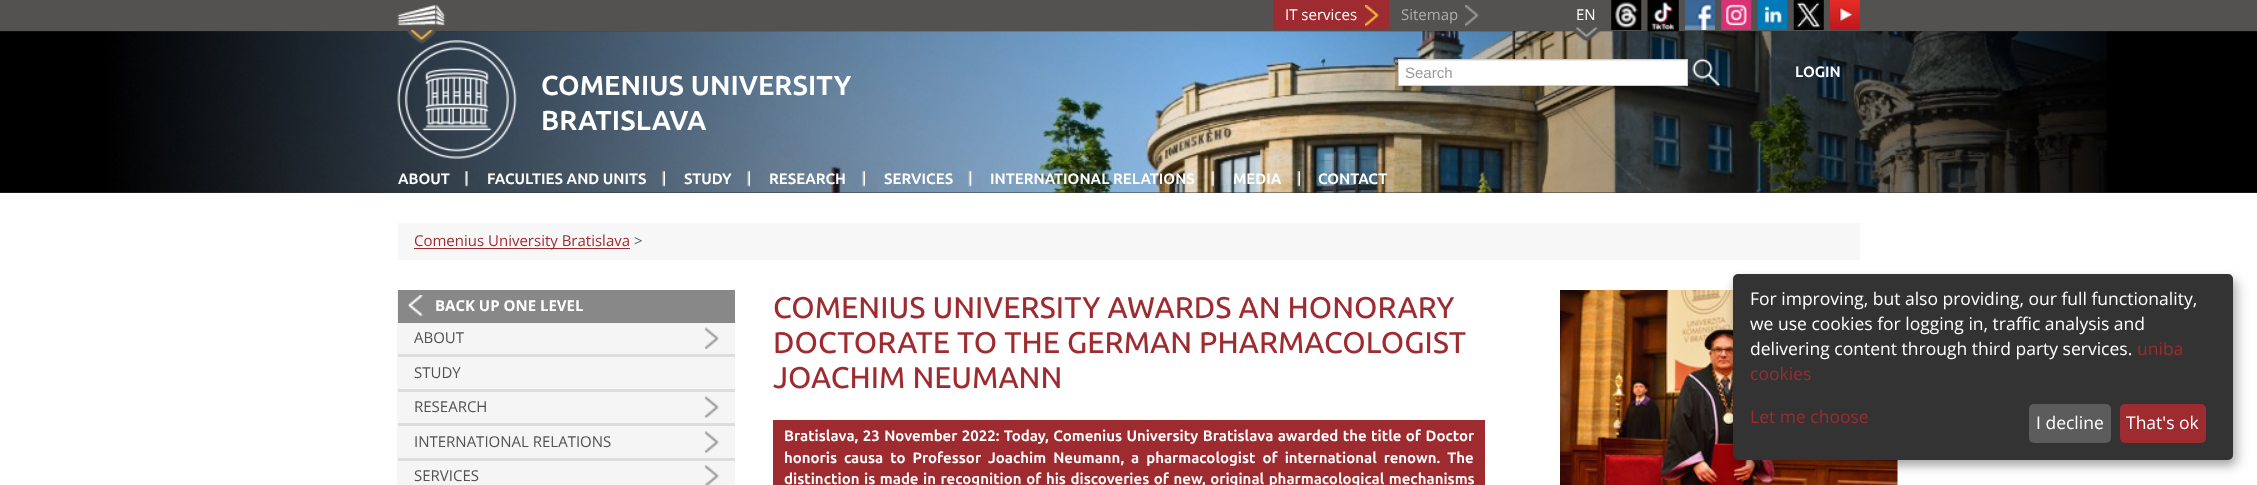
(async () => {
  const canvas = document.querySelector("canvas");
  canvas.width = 2257;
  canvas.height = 485;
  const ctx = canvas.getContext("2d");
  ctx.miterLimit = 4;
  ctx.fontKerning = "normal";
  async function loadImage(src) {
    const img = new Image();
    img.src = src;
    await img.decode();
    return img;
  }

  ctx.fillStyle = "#ffffff";
  ctx.fillRect(0, 0, 2257, 485);
  ctx.fillStyle = "#535250";
  ctx.fillRect(0, 0, 2257, 31);
  ctx.fillStyle = "#323232";
  ctx.fillRect(0, 31, 2257, 162);
  ctx.drawImage(await loadImage("img/12.png"), 0, 31, 2257, 162);
  ctx.drawImage(await loadImage("img/21.png"), 397, 40, 120, 119);
  ctx.drawImage(await loadImage("img/1.png"), 397, 4, 48, 40);
  ctx.fillStyle = "#9e2b2f";
  ctx.fillRect(1273, 0, 116, 30);
  ctx.drawImage(await loadImage("img/2.png"), 1365, 5, 14, 22);
  ctx.drawImage(await loadImage("img/3.png"), 1465, 5, 14, 22);
  ctx.drawImage(await loadImage("img/4.png"), 1573, 27, 27, 15);
  ctx.drawImage(await loadImage("img/5.png"), 1611, 0, 31, 30);
  ctx.drawImage(await loadImage("img/6.png"), 1647, 0, 32, 32);
  ctx.drawImage(await loadImage("img/7.png"), 1685, 0, 30, 30);
  ctx.drawImage(await loadImage("img/8.png"), 1721, 0, 31, 30);
  ctx.drawImage(await loadImage("img/9.png"), 1757, 0, 31, 30);
  ctx.drawImage(await loadImage("img/10.png"), 1793, 0, 31, 30);
  ctx.drawImage(await loadImage("img/11.png"), 1830, 0, 30, 30);
  ctx.drawImage(await loadImage("img/13.png"), 465, 171, 3, 16);
  ctx.drawImage(await loadImage("img/14.png"), 662, 171, 3, 16);
  ctx.drawImage(await loadImage("img/15.png"), 747, 171, 3, 16);
  ctx.drawImage(await loadImage("img/16.png"), 862, 171, 3, 16);
  ctx.drawImage(await loadImage("img/17.png"), 968, 171, 4, 16);
  ctx.drawImage(await loadImage("img/18.png"), 1211, 171, 3, 16);
  ctx.drawImage(await loadImage("img/19.png"), 1297, 171, 3, 16);
  ctx.fillStyle = "#ffffff";
  ctx.fillRect(1399, 60, 288, 25);
  ctx.fillStyle = "#ececec";
  ctx.fillRect(1399, 60, 287, 1);
  ctx.strokeStyle = "#cccccc";
  ctx.strokeRect(1398.5, 59.5, 289, 26);
  ctx.drawImage(await loadImage("img/20.png"), 1692, 58, 28, 29);
  for (const [x, y, w, h, color] of [
    [398, 223, 1462, 37, "#f7f7f7"],
    [414, 248, 216, 1, "#9e2b2f"],
    [397, 290, 338, 195, "#f5f5f5"],
    [398, 290, 337, 33, "#888888"],
  ]) {
    ctx.fillStyle = color;
    ctx.fillRect(x, y, w, h);
  }
  ctx.drawImage(await loadImage("img/22.png"), 408, 295, 15, 22);
  ctx.fillStyle = "#dddddd";
  ctx.fillRect(398, 354, 337, 3);
  ctx.drawImage(await loadImage("img/23.png"), 704, 327, 15, 22);
  ctx.fillRect(398, 389, 337, 3);
  ctx.fillRect(398, 423, 337, 3);
  ctx.drawImage(await loadImage("img/24.png"), 704, 396, 15, 22);
  ctx.fillRect(398, 458, 337, 3);
  ctx.drawImage(await loadImage("img/24.png"), 704, 431, 15, 22);
  ctx.drawImage(await loadImage("img/25.png"), 704, 465, 15, 20);
  ctx.fillStyle = "#9e2b2f";
  ctx.fillRect(773, 420, 712, 65);
  ctx.drawImage(await loadImage("img/26.png"), 1560, 290, 338, 195);
  ctx.fillStyle = "rgba(0, 0, 0, 0.19)";
  ctx.filter = "blur(6px)";
  ctx.beginPath();
  ctx.roundRect(1739, 280, 500, 186, 5);
  ctx.fill();
  ctx.filter = "none";
  ctx.fillStyle = "rgba(0, 0, 0, 0.2)";
  ctx.filter = "blur(4px)";
  ctx.beginPath();
  ctx.roundRect(1733, 279, 500, 186, 5);
  ctx.fill();
  ctx.filter = "none";
  ctx.fillStyle = "#333333";
  ctx.beginPath();
  ctx.roundRect(1733, 274, 500, 186, 5);
  ctx.fill();
  ctx.fillStyle = "#5c5c5c";
  ctx.beginPath();
  ctx.roundRect(2029, 404, 82, 39, 5);
  ctx.fill();
  ctx.fillStyle = "#9e2b2f";
  ctx.beginPath();
  ctx.roundRect(2120, 404, 86, 39, 5);
  ctx.fill();
  ctx.font = "15px Open Sans";
  ctx.fillStyle = "#ffffff";
  ctx.fillText("IT services", 1285, 20);
  ctx.fillStyle = "#adadad";
  ctx.fillText("Sitemap", 1401, 20);
  ctx.fillStyle = "#ffffff";
  ctx.fillText("EN", 1576, 20);
  ctx.font = "bold 15px Ubuntu";
  for (const [text, x, y] of [
    ["LOGIN", 1795, 77],
    ["ABOUT", 398, 184],
    ["FACULTIES AND UNITS", 487, 184],
    ["STUDY", 684, 184],
    ["RESEARCH", 769, 184],
    ["SERVICES", 884, 184],
    ["INTERNATIONAL RELATIONS", 990, 184],
    ["MEDIA", 1233, 184],
    ["CONTACT", 1318, 184],
  ]) {
    ctx.fillText(text, x, y);
  }
  ctx.font = "15px Liberation Sans";
  ctx.fillStyle = "#999999";
  ctx.fillText("Search", 1405, 78);
  ctx.font = "bold 27.5px Ubuntu";
  ctx.fillStyle = "#ffffff";
  ctx.fillText("COMENIUS UNIVERSITY", 541, 95);
  ctx.fillText("BRATISLAVA", 541, 130);
  ctx.font = "15px Open Sans";
  ctx.fillStyle = "#9e2b2f";
  ctx.fillText("Comenius University Bratislava", 414, 246);
  ctx.fillStyle = "#535250";
  ctx.fillText(">", 634, 246);
  ctx.font = "bold 15px Open Sans";
  ctx.fillStyle = "#ffffff";
  ctx.fillText("BACK UP ONE LEVEL", 435, 311);
  ctx.font = "15px Open Sans";
  ctx.fillStyle = "#535250";
  for (const [text, x, y] of [
    ["ABOUT", 414, 343],
    ["STUDY", 414, 378],
    ["RESEARCH", 414, 412],
    ["INTERNATIONAL RELATIONS", 414, 447],
    ["SERVICES", 414, 481],
  ]) {
    ctx.fillText(text, x, y);
  }
  ctx.font = "500 30px Ubuntu";
  ctx.fillStyle = "#9e2b2f";
  for (const [text, x, y] of [
    ["COMENIUS UNIVERSITY AWARDS AN HONORARY", 773, 318],
    ["DOCTORATE TO THE GERMAN PHARMACOLOGIST", 773, 353],
    ["JOACHIM NEUMANN", 773, 388],
  ]) {
    ctx.fillText(text, x, y);
  }
  ctx.wordSpacing = "0.9px";
  ctx.font = "bold 15px Ubuntu";
  ctx.fillStyle = "#ffffff";
  ctx.fillText("Bratislava, 23 November 2022: Today, Comenius University Bratislava awarded the title of Doctor", 784, 441);
  ctx.wordSpacing = "3.4px";
  ctx.fillText("honoris causa to Professor Joachim Neumann, a pharmacologist of international renown. The", 784, 463);
  ctx.wordSpacing = "1px";
  ctx.fillText("distinction is made in recognition of his discoveries of new, original pharmacological mechanisms", 784, 484);
  ctx.wordSpacing = "0px";
  ctx.font = "17.5px Open Sans";
  for (const [text, x, y] of [
    ["For improving, but also providing, our full functionality,", 1750, 305],
    ["we use cookies for logging in, traffic analysis and", 1750, 330],
    ["delivering content through third party services.", 1750, 355],
  ]) {
    ctx.fillText(text, x, y);
  }
  ctx.fillStyle = "#9e2b2f";
  for (const [text, x, y] of [
    ["uniba", 2137, 355],
    ["cookies", 1750, 380],
    ["Let me choose", 1750, 423],
  ]) {
    ctx.fillText(text, x, y);
  }
  ctx.fillStyle = "#ffffff";
  ctx.fillText("I decline", 2036, 429);
  ctx.fillText("That's ok", 2126, 429);
})();
